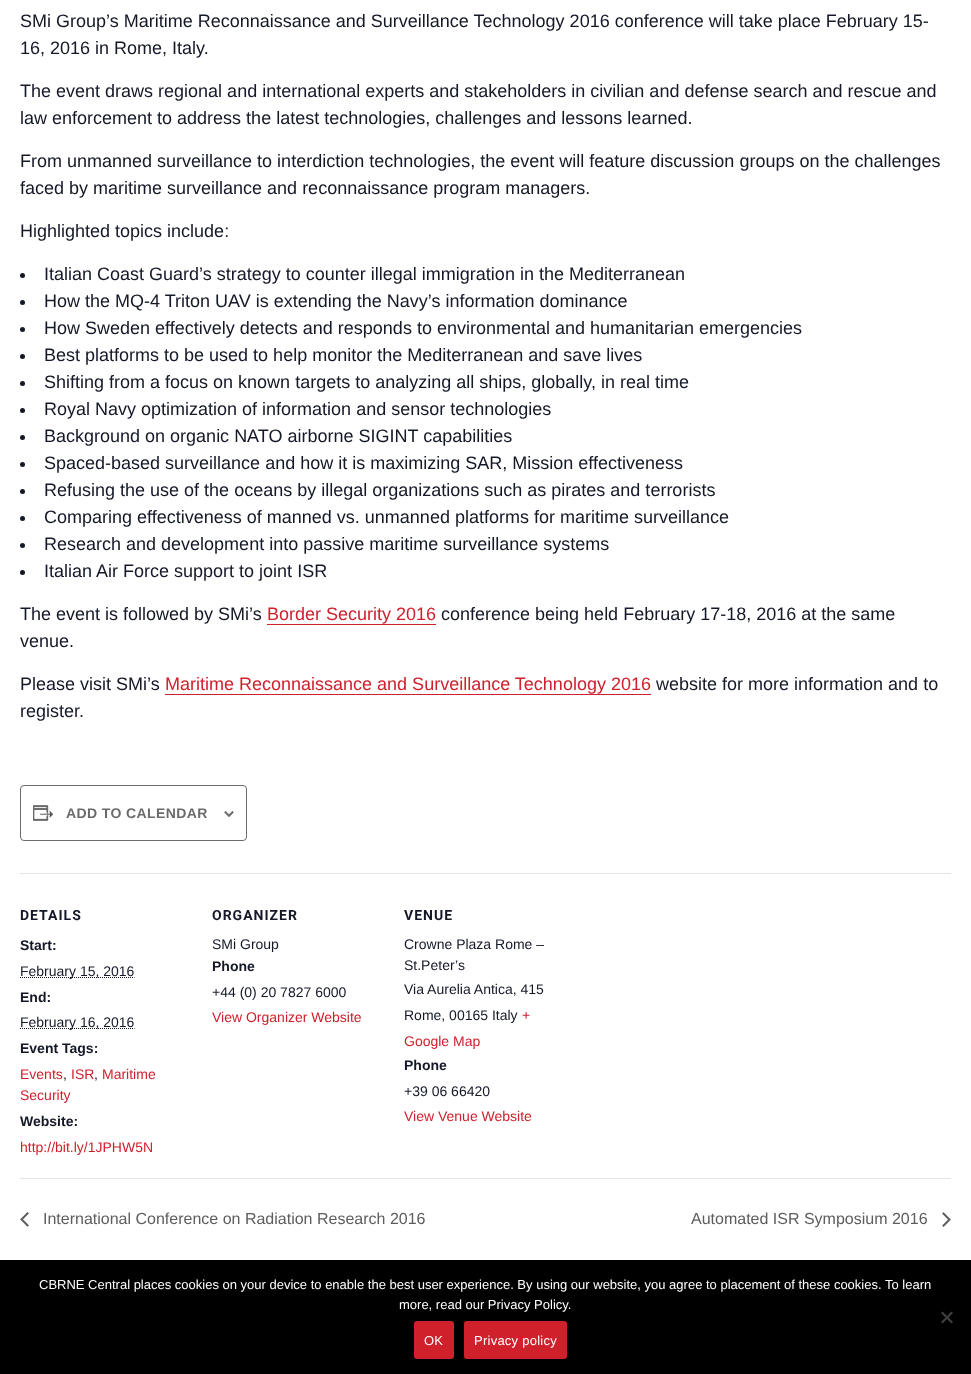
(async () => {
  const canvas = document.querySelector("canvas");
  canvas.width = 971;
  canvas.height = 1374;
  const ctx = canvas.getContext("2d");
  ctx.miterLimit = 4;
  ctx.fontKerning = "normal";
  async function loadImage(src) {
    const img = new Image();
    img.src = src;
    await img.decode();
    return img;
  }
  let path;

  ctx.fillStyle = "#ffffff";
  ctx.fillRect(0, 0, 971, 1374);
  ctx.fillStyle = "#141827";
  ctx.beginPath();
  ctx.arc(22.5, 275.5, 2.5, 0, Math.PI * 2);
  ctx.fill();
  ctx.beginPath();
  ctx.arc(22.5, 302.5, 2.5, 0, Math.PI * 2);
  ctx.fill();
  ctx.beginPath();
  ctx.arc(22.5, 329.5, 2.5, 0, Math.PI * 2);
  ctx.fill();
  ctx.beginPath();
  ctx.arc(22.5, 356.5, 2.5, 0, Math.PI * 2);
  ctx.fill();
  ctx.beginPath();
  ctx.arc(22.5, 383.5, 2.5, 0, Math.PI * 2);
  ctx.fill();
  ctx.beginPath();
  ctx.arc(22.5, 410.5, 2.5, 0, Math.PI * 2);
  ctx.fill();
  ctx.beginPath();
  ctx.arc(22.5, 437.5, 2.5, 0, Math.PI * 2);
  ctx.fill();
  ctx.beginPath();
  ctx.arc(22.5, 464.5, 2.5, 0, Math.PI * 2);
  ctx.fill();
  ctx.beginPath();
  ctx.arc(22.5, 491.5, 2.5, 0, Math.PI * 2);
  ctx.fill();
  ctx.beginPath();
  ctx.arc(22.5, 518.5, 2.5, 0, Math.PI * 2);
  ctx.fill();
  ctx.beginPath();
  ctx.arc(22.5, 545.5, 2.5, 0, Math.PI * 2);
  ctx.fill();
  ctx.beginPath();
  ctx.arc(22.5, 572.5, 2.5, 0, Math.PI * 2);
  ctx.fill();
  ctx.fillStyle = "#cf202d";
  ctx.fillRect(267, 624, 169, 1);
  ctx.fillRect(165, 694, 486, 1);
  ctx.beginPath();
  ctx.roundRect(20.5, 785.5, 226, 55, 3.5);
  ctx.strokeStyle = "#6b6b6b";
  ctx.stroke();
  ctx.drawImage(await loadImage("img/1.png"), 33, 805, 20, 16);
  ctx.drawImage(await loadImage("img/2.png"), 224, 811, 10, 6);
  ctx.fillStyle = "#e4e4e4";
  ctx.fillRect(20, 873, 931, 1);
  path = new Path2D("M20 977.5H134.5");
  ctx.strokeStyle = "#141827";
  ctx.setLineDash([1, 1]);
  ctx.stroke(path);
  path = new Path2D("M20 1028.5H134.5");
  ctx.stroke(path);
  ctx.fillRect(20, 1178, 931, 1);
  ctx.drawImage(await loadImage("img/3.png"), 20, 1212, 9, 15);
  ctx.drawImage(await loadImage("img/4.png"), 942, 1212, 9, 15);
  ctx.fillStyle = "#000000";
  ctx.fillRect(0, 1260, 971, 114);
  ctx.fillStyle = "#404040";
  path = new Path2D("M951.5 1311.5L953 1313L942.5 1323.5L941 1322Z");
  ctx.fill(path);
  path = new Path2D("M941 1313L942.5 1311.5L953 1322L951.5 1323.5Z");
  ctx.fill(path);
  ctx.fillStyle = "#cf202c";
  ctx.beginPath();
  ctx.roundRect(414, 1321, 40, 38, 3);
  ctx.fill();
  ctx.beginPath();
  ctx.roundRect(464, 1321, 103, 38, 3);
  ctx.fill();
  ctx.font = "18px Liberation Sans";
  ctx.fillStyle = "#141827";
  for (const [text, x, y] of [
    ["SMi Group’s Maritime Reconnaissance and Surveillance Technology 2016 conference will take place February 15-", 20, 27],
    ["16, 2016 in Rome, Italy.", 20, 54],
    ["The event draws regional and international experts and stakeholders in civilian and defense search and rescue and", 20, 97],
    ["law enforcement to address the latest technologies, challenges and lessons learned.", 20, 124],
    ["From unmanned surveillance to interdiction technologies, the event will feature discussion groups on the challenges", 20, 167],
    ["faced by maritime surveillance and reconnaissance program managers.", 20, 194],
    ["Highlighted topics include:", 20, 237],
    ["Italian Coast Guard’s strategy to counter illegal immigration in the Mediterranean", 44, 280],
    ["How the MQ-4 Triton UAV is extending the Navy’s information dominance", 44, 307],
    ["How Sweden effectively detects and responds to environmental and humanitarian emergencies", 44, 334],
    ["Best platforms to be used to help monitor the Mediterranean and save lives", 44, 361],
    ["Shifting from a focus on known targets to analyzing all ships, globally, in real time", 44, 388],
    ["Royal Navy optimization of information and sensor technologies", 44, 415],
    ["Background on organic NATO airborne SIGINT capabilities", 44, 442],
    ["Spaced-based surveillance and how it is maximizing SAR, Mission effectiveness", 44, 469],
    ["Refusing the use of the oceans by illegal organizations such as pirates and terrorists", 44, 496],
    ["Comparing effectiveness of manned vs. unmanned platforms for maritime surveillance", 44, 523],
    ["Research and development into passive maritime surveillance systems", 44, 550],
    ["Italian Air Force support to joint ISR", 44, 577],
    ["The event is followed by SMi’s", 20, 620],
  ]) {
    ctx.fillText(text, x, y);
  }
  ctx.fillStyle = "#cf202d";
  ctx.fillText("Border Security 2016", 267, 620);
  ctx.fillStyle = "#141827";
  for (const [text, x, y] of [
    ["conference being held February 17-18, 2016 at the same", 441, 620],
    ["venue.", 20, 647],
    ["Please visit SMi’s", 20, 690],
  ]) {
    ctx.fillText(text, x, y);
  }
  ctx.fillStyle = "#cf202d";
  ctx.fillText("Maritime Reconnaissance and Surveillance Technology 2016", 165, 690);
  ctx.fillStyle = "#141827";
  ctx.fillText("website for more information and to", 656, 690);
  ctx.fillText("register.", 20, 717);
  ctx.letterSpacing = "0.4px";
  ctx.font = "bold 14px Liberation Sans";
  ctx.fillStyle = "#6b6b6b";
  ctx.fillText("ADD TO CALENDAR", 66, 818);
  ctx.letterSpacing = "1px";
  ctx.font = "bold 14px Roboto";
  ctx.fillStyle = "#141827";
  ctx.fillText("DETAILS", 20, 920);
  ctx.letterSpacing = "0px";
  ctx.font = "bold 14px Liberation Sans";
  ctx.fillText("Start:", 20, 950);
  ctx.font = "14px Liberation Sans";
  ctx.fillText("February 15, 2016", 20, 976);
  ctx.font = "bold 14px Liberation Sans";
  ctx.fillText("End:", 20, 1002);
  ctx.font = "14px Liberation Sans";
  ctx.fillText("February 16, 2016", 20, 1027);
  ctx.font = "bold 14px Liberation Sans";
  ctx.fillText("Event Tags:", 20, 1053);
  ctx.font = "14px Liberation Sans";
  ctx.fillStyle = "#cf202d";
  ctx.fillText("Events", 20, 1079);
  ctx.fillStyle = "#141827";
  ctx.fillText(",", 63, 1079);
  ctx.fillStyle = "#cf202d";
  ctx.fillText("ISR", 71, 1079);
  ctx.fillStyle = "#141827";
  ctx.fillText(",", 94, 1079);
  ctx.fillStyle = "#cf202d";
  ctx.fillText("Maritime", 102, 1079);
  ctx.fillText("Security", 20, 1100);
  ctx.font = "bold 14px Liberation Sans";
  ctx.fillStyle = "#141827";
  ctx.fillText("Website:", 20, 1126);
  ctx.font = "14px Liberation Sans";
  ctx.fillStyle = "#cf202d";
  ctx.fillText("http://bit.ly/1JPHW5N", 20, 1152);
  ctx.letterSpacing = "1px";
  ctx.font = "bold 14px Roboto";
  ctx.fillStyle = "#141827";
  ctx.fillText("ORGANIZER", 212, 920);
  ctx.letterSpacing = "0px";
  ctx.font = "14px Liberation Sans";
  ctx.fillText("SMi Group", 212, 949);
  ctx.font = "bold 14px Liberation Sans";
  ctx.fillText("Phone", 212, 971);
  ctx.font = "14px Liberation Sans";
  ctx.fillText("+44 (0) 20 7827 6000", 212, 997);
  ctx.fillStyle = "#cf202d";
  ctx.fillText("View Organizer Website", 212, 1022);
  ctx.letterSpacing = "1px";
  ctx.font = "bold 14px Roboto";
  ctx.fillStyle = "#141827";
  ctx.fillText("VENUE", 404, 920);
  ctx.letterSpacing = "0px";
  ctx.font = "14px Liberation Sans";
  for (const [text, x, y] of [
    ["Crowne Plaza Rome –", 404, 949],
    ["St.Peter’s", 404, 970],
    ["Via Aurelia Antica, 415", 404, 994],
    ["Rome, 00165 Italy", 404, 1020],
  ]) {
    ctx.fillText(text, x, y);
  }
  ctx.fillStyle = "#cf202d";
  ctx.fillText("+", 522, 1020);
  ctx.fillText("Google Map", 404, 1046);
  ctx.font = "bold 14px Liberation Sans";
  ctx.fillStyle = "#141827";
  ctx.fillText("Phone", 404, 1070);
  ctx.font = "14px Liberation Sans";
  ctx.fillText("+39 06 66420", 404, 1096);
  ctx.fillStyle = "#cf202d";
  ctx.fillText("View Venue Website", 404, 1121);
  ctx.font = "16px Liberation Sans";
  ctx.fillStyle = "#5d5d5d";
  ctx.fillText("International Conference on Radiation Research 2016", 43, 1224);
  ctx.fillText("Automated ISR Symposium 2016", 691, 1224);
  ctx.font = "13px Liberation Sans";
  ctx.fillStyle = "#ffffff";
  ctx.fillText("CBRNE Central places cookies on your device to enable the best user experience. By using our website, you agree to placement of these cookies. To learn", 39, 1289);
  ctx.fillText("more, read our Privacy Policy.", 399, 1309);
  ctx.letterSpacing = "0.25px";
  ctx.fillText("OK", 424, 1345);
  ctx.fillText("Privacy policy", 474, 1345);
})();
